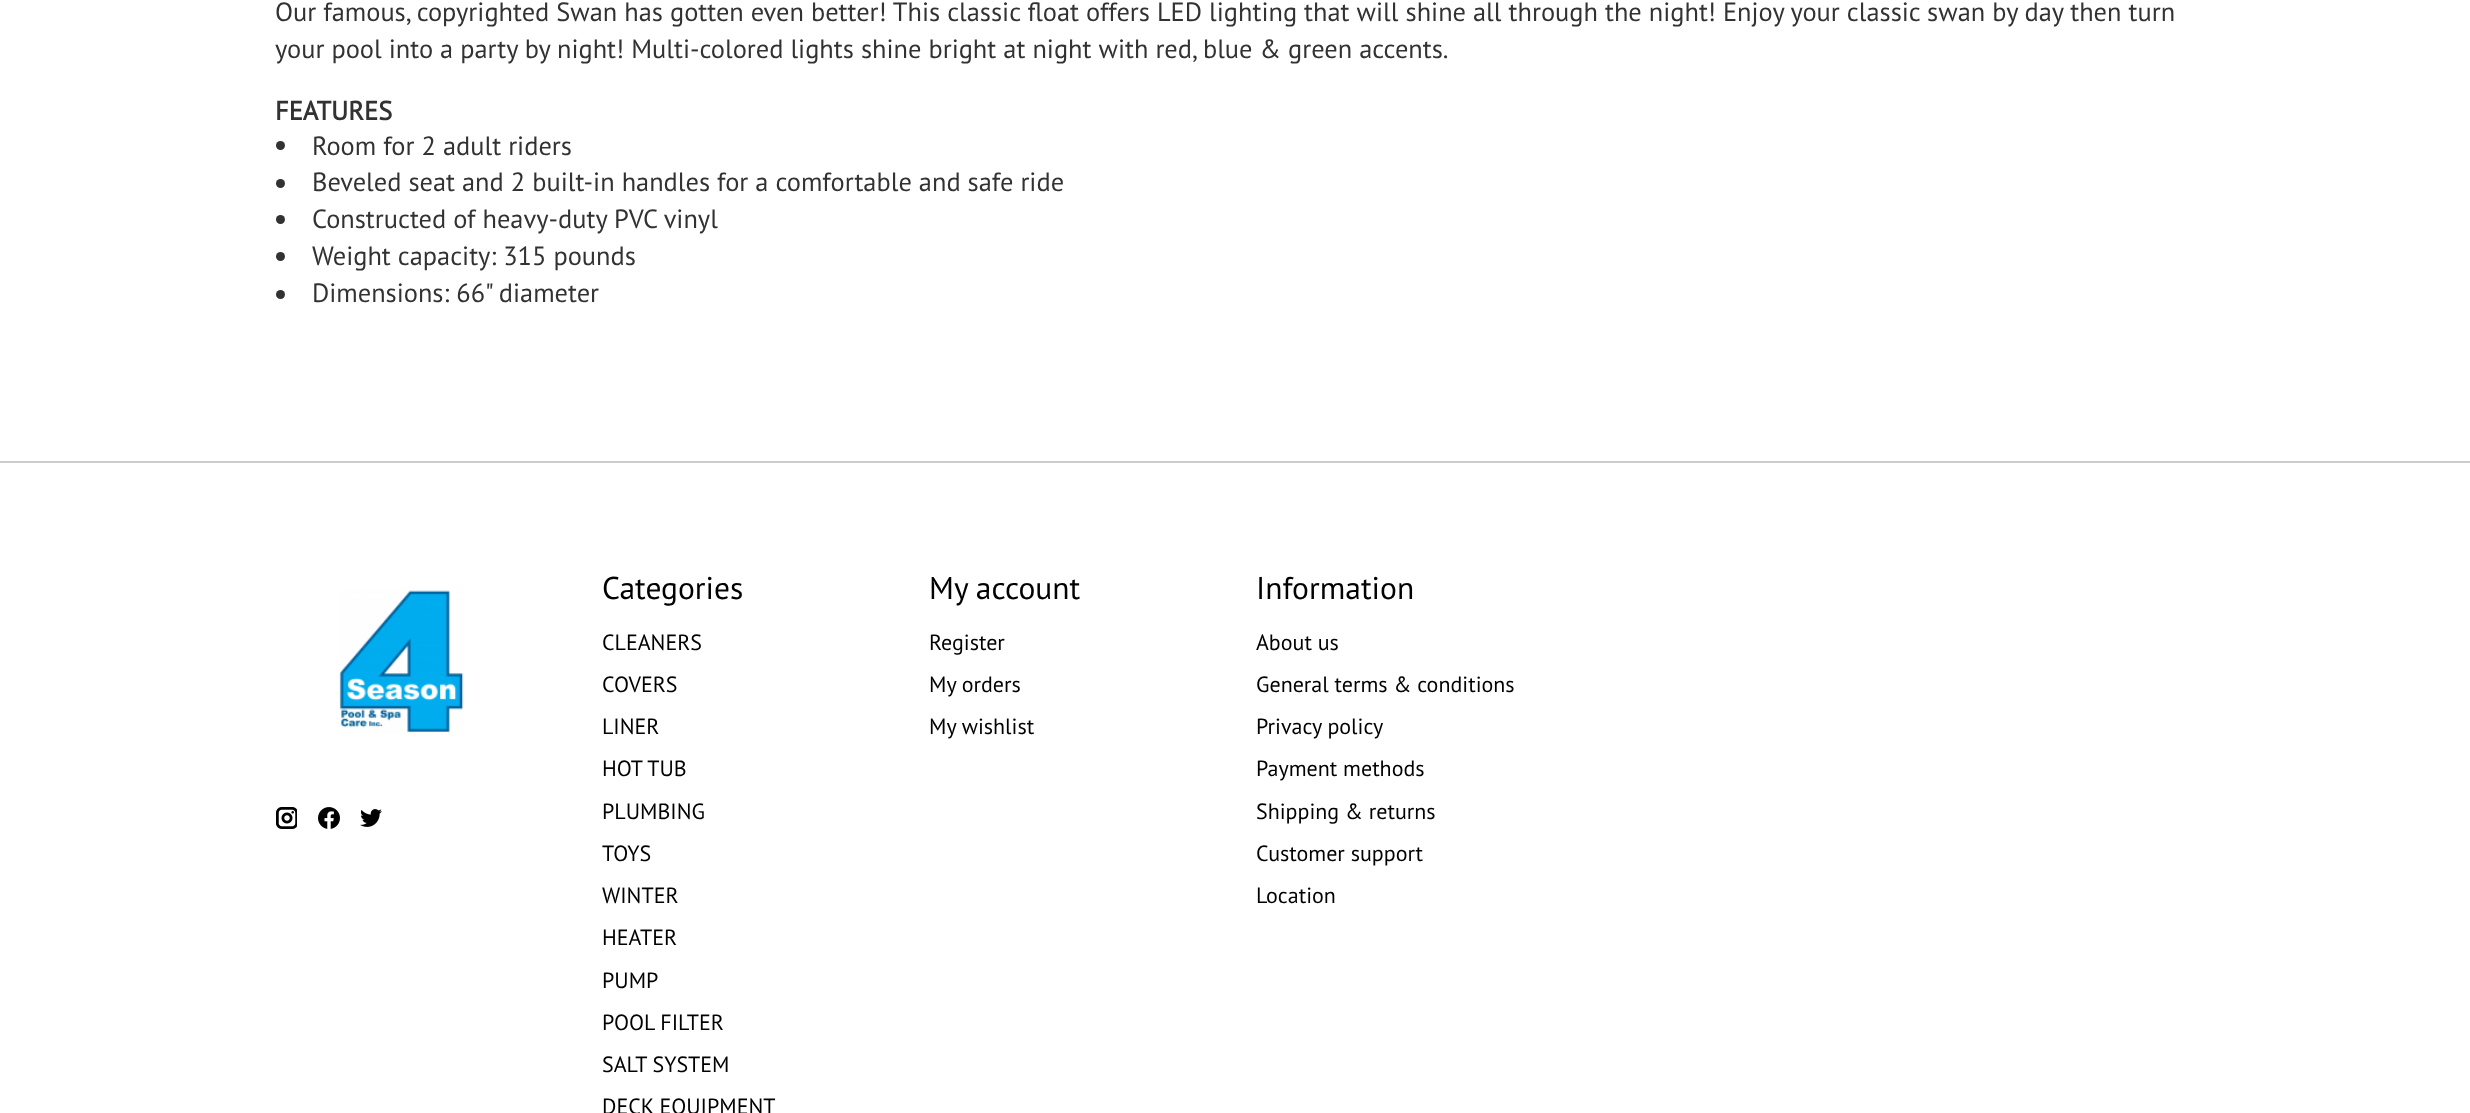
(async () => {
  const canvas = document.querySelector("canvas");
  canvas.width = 2470;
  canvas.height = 1113;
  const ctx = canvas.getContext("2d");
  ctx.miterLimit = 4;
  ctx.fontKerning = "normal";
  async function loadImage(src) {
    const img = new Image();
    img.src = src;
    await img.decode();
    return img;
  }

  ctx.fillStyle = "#ffffff";
  ctx.fillRect(0, 0, 2470, 1113);
  ctx.fillStyle = "#333232";
  ctx.beginPath();
  ctx.arc(280.5, 145.5, 4.5, 0, Math.PI * 2);
  ctx.fill();
  ctx.beginPath();
  ctx.arc(280.5, 183.5, 4.5, 0, Math.PI * 2);
  ctx.fill();
  ctx.beginPath();
  ctx.arc(280.5, 219.5, 4.5, 0, Math.PI * 2);
  ctx.fill();
  ctx.beginPath();
  ctx.arc(280.5, 256.5, 4.5, 0, Math.PI * 2);
  ctx.fill();
  ctx.beginPath();
  ctx.arc(280.5, 294.5, 4.5, 0, Math.PI * 2);
  ctx.fill();
  ctx.fillStyle = "#cccccc";
  ctx.fillRect(0, 461, 2470, 2);
  ctx.drawImage(await loadImage("img/1.png"), 339, 590, 125, 143);
  ctx.drawImage(await loadImage("img/2.png"), 276, 807, 21, 22);
  ctx.drawImage(await loadImage("img/3.png"), 318, 807, 22, 22);
  ctx.drawImage(await loadImage("img/4.png"), 360, 809, 22, 18);
  ctx.font = "26.4px PT Sans";
  ctx.fillStyle = "#333232";
  ctx.fillText("Our famous, copyrighted Swan has gotten even better! This classic float offers LED lighting that will shine all through the night! Enjoy your classic swan by day then turn", 275, 21);
  ctx.fillText("your pool into a party by night! Multi-colored lights shine bright at night with red, blue & green accents.", 275, 58);
  ctx.font = "bold 26.4px PT Sans";
  ctx.fillText("FEATURES", 275, 120);
  ctx.font = "26.4px PT Sans";
  for (const [text, x, y] of [
    ["Room for 2 adult riders", 312, 155],
    ["Beveled seat and 2 built-in handles for a comfortable and safe ride", 312, 191],
    ["Constructed of heavy-duty PVC vinyl", 312, 228],
    ["Weight capacity: 315 pounds", 312, 265],
    ["Dimensions: 66\" diameter", 312, 302],
  ]) {
    ctx.fillText(text, x, y);
  }
  ctx.font = "31.5px PT Sans";
  ctx.fillStyle = "#000000";
  ctx.fillText("Categories", 602, 599);
  ctx.font = "22px PT Sans";
  for (const [text, x, y] of [
    ["CLEANERS", 602, 650],
    ["COVERS", 602, 692],
    ["LINER", 602, 734],
    ["HOT TUB", 602, 776],
    ["PLUMBING", 602, 819],
    ["TOYS", 602, 861],
    ["WINTER", 602, 903],
    ["HEATER", 602, 945],
    ["PUMP", 602, 988],
    ["POOL FILTER", 602, 1030],
    ["SALT SYSTEM", 602, 1072],
    ["DECK EQUIPMENT", 602, 1114],
  ]) {
    ctx.fillText(text, x, y);
  }
  ctx.font = "31.5px PT Sans";
  ctx.fillText("My account", 929, 599);
  ctx.font = "22px PT Sans";
  for (const [text, x, y] of [
    ["Register", 929, 650],
    ["My orders", 929, 692],
    ["My wishlist", 929, 734],
  ]) {
    ctx.fillText(text, x, y);
  }
  ctx.font = "31.5px PT Sans";
  ctx.fillText("Information", 1256, 599);
  ctx.font = "22px PT Sans";
  for (const [text, x, y] of [
    ["About us", 1256, 650],
    ["General terms & conditions", 1256, 692],
    ["Privacy policy", 1256, 734],
    ["Payment methods", 1256, 776],
    ["Shipping & returns", 1256, 819],
    ["Customer support", 1256, 861],
    ["Location", 1256, 903],
  ]) {
    ctx.fillText(text, x, y);
  }
})();
